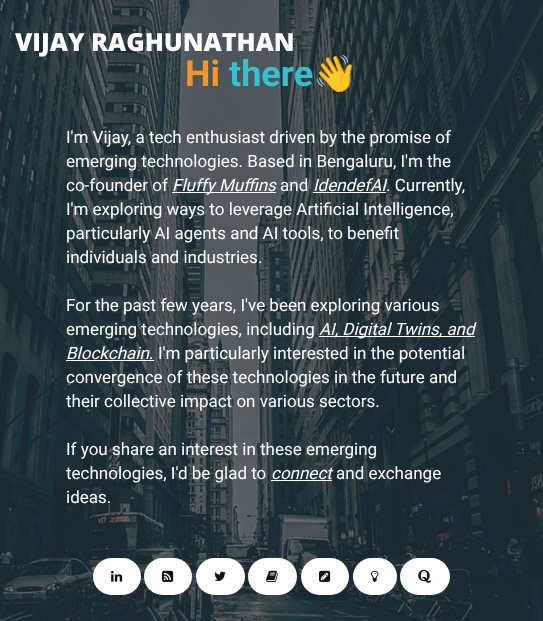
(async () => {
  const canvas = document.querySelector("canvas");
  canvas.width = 543;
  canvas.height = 621;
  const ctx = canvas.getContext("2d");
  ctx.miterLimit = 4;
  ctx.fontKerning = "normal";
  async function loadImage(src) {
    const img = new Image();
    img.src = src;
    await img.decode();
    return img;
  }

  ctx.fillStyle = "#ffffff";
  ctx.fillRect(0, 0, 543, 621);
  ctx.drawImage(await loadImage("img/1.png"), 0, 0, 543, 621);
  for (const [x, y, w, h, color] of [
    [172, 192, 104, 1, "#ffffff"],
    [313, 192, 73, 1, "#ffffff"],
    [319, 336, 156, 1, "#ffffff"],
    [66, 360, 88, 1, "#ffffff"],
    [271, 480, 61, 1, "#ffffff"],
  ]) {
    ctx.fillStyle = color;
    ctx.fillRect(x, y, w, h);
  }
  ctx.beginPath();
  ctx.roundRect(93, 558, 48, 37, 18.5);
  ctx.fill();
  ctx.drawImage(await loadImage("img/2.png"), 111, 570, 12, 12);
  ctx.beginPath();
  ctx.roundRect(144, 558, 48, 37, 18.5);
  ctx.fill();
  ctx.drawImage(await loadImage("img/3.png"), 162, 570, 12, 12);
  ctx.beginPath();
  ctx.roundRect(196, 558, 49, 37, 18.5);
  ctx.fill();
  ctx.drawImage(await loadImage("img/4.png"), 214, 571, 12, 10);
  ctx.beginPath();
  ctx.roundRect(248, 558, 49, 37, 18.5);
  ctx.fill();
  ctx.drawImage(await loadImage("img/5.png"), 266, 570, 12, 12);
  ctx.beginPath();
  ctx.roundRect(301, 558, 48, 37, 18.5);
  ctx.fill();
  ctx.drawImage(await loadImage("img/6.png"), 319, 570, 12, 12);
  ctx.beginPath();
  ctx.roundRect(353, 558, 44, 37, 18.5);
  ctx.fill();
  ctx.drawImage(await loadImage("img/7.png"), 371, 570, 8, 12);
  ctx.beginPath();
  ctx.roundRect(400, 558, 50, 37, 18.5);
  ctx.fill();
  ctx.drawImage(await loadImage("img/8.png"), 418, 569, 13, 14);
  ctx.font = "800 25px Open Sans";
  ctx.fillText("VIJAY RAGHUNATHAN", 15, 51);
  ctx.font = "bold 36px Roboto";
  ctx.fillStyle = "#f89624";
  ctx.fillText("Hi", 185, 86);
  ctx.fillStyle = "#33c1cf";
  ctx.fillText("there", 229, 86);
  ctx.font = "bold 36px Noto Color Emoji";
  ctx.fillText("👋", 313, 86);
  ctx.font = "17px Roboto";
  ctx.fillStyle = "#ffffff";
  for (const [text, x, y] of [
    ["I'm Vijay, a tech enthusiast driven by the promise of", 66, 143],
    ["emerging technologies. Based in Bengaluru, I'm the", 66, 167],
    ["co-founder of", 66, 191],
  ]) {
    ctx.fillText(text, x, y);
  }
  ctx.font = "italic 17px Roboto";
  ctx.fillText("Fluffy Muffins", 172, 191);
  ctx.font = "17px Roboto";
  ctx.fillText("and", 280, 191);
  ctx.font = "italic 17px Roboto";
  ctx.fillText("IdendefAI", 313, 191);
  ctx.font = "17px Roboto";
  for (const [text, x, y] of [
    [". Currently,", 386, 191],
    ["I'm exploring ways to leverage Artificial Intelligence,", 66, 215],
    ["particularly AI agents and AI tools, to benefit", 66, 239],
    ["individuals and industries.", 66, 263],
    ["For the past few years, I've been exploring various", 66, 311],
    ["emerging technologies, including", 66, 335],
  ]) {
    ctx.fillText(text, x, y);
  }
  ctx.font = "italic 17px Roboto";
  ctx.fillText("AI, Digital Twins, and", 319, 335);
  ctx.fillText("Blockchain.", 66, 359);
  ctx.font = "17px Roboto";
  for (const [text, x, y] of [
    ["I'm particularly interested in the potential", 158, 359],
    ["convergence of these technologies in the future and", 66, 383],
    ["their collective impact on various sectors.", 66, 407],
    ["If you share an interest in these emerging", 66, 455],
    ["technologies, I'd be glad to", 66, 479],
  ]) {
    ctx.fillText(text, x, y);
  }
  ctx.font = "italic 17px Roboto";
  ctx.fillText("connect", 271, 479);
  ctx.font = "17px Roboto";
  ctx.fillText("and exchange", 336, 479);
  ctx.fillText("ideas.", 66, 503);
})();
